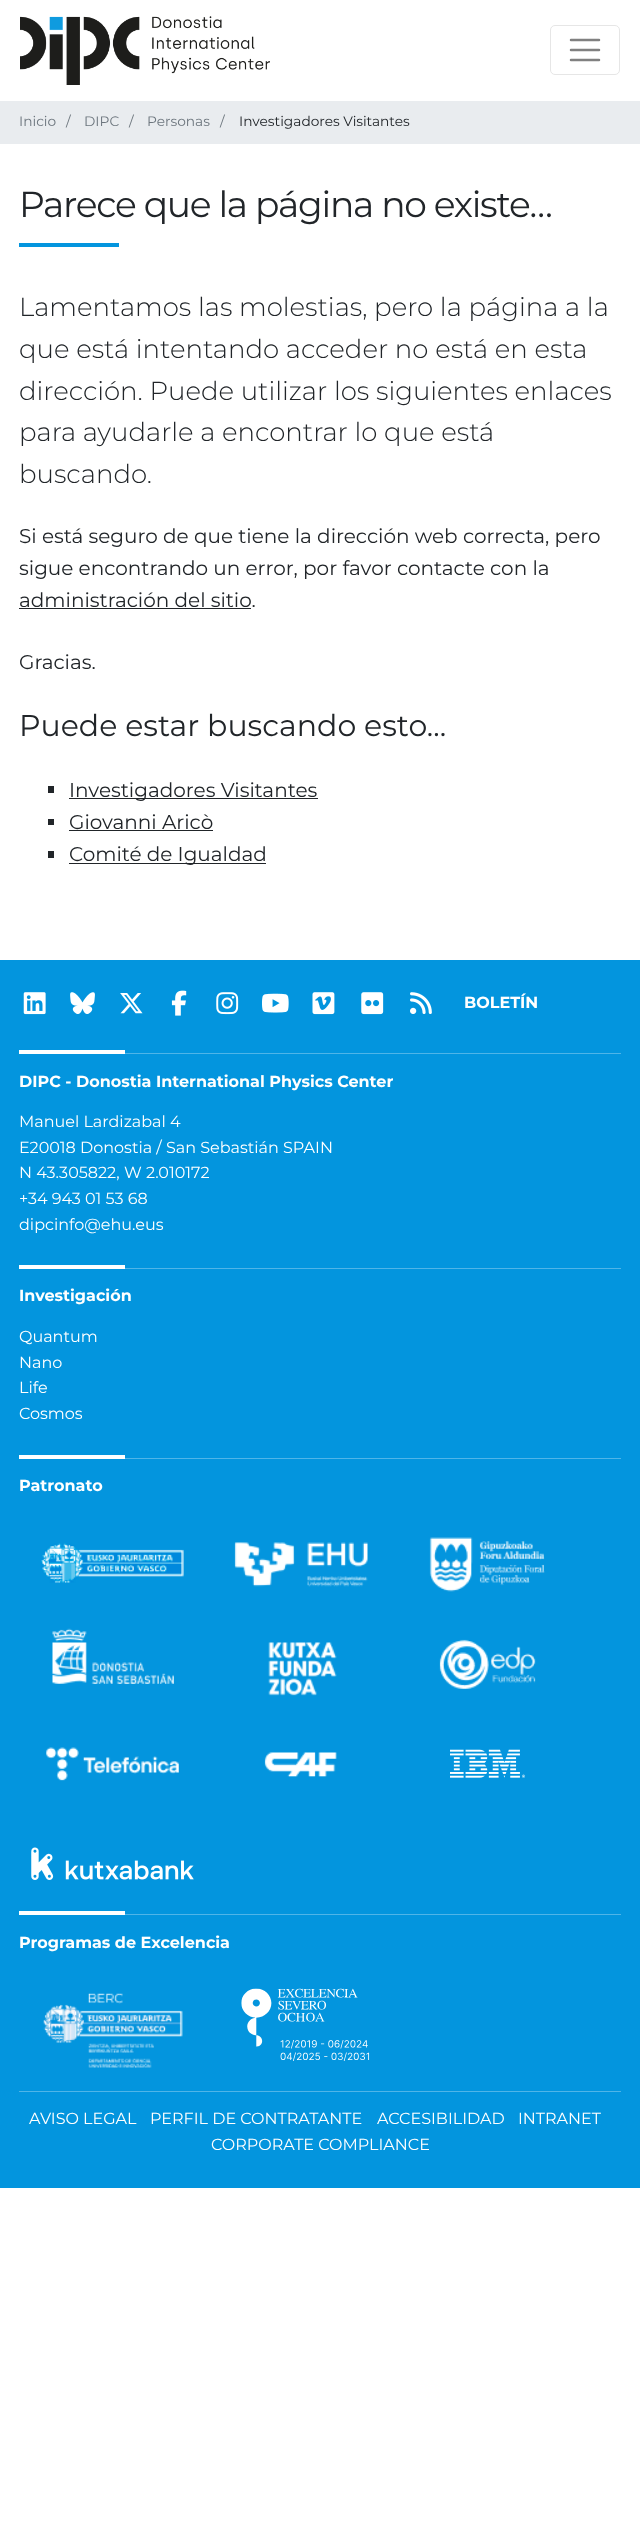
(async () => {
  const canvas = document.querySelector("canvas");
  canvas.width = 640;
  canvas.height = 2530;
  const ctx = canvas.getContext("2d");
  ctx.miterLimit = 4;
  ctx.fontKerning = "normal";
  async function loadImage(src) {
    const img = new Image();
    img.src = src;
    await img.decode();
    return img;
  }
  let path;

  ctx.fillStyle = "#ffffff";
  ctx.fillRect(0, 0, 640, 2530);
  ctx.drawImage(await loadImage("img/1.png"), 20, 16, 250, 69);
  ctx.beginPath();
  ctx.roundRect(550.5, 25.5, 69, 49, 4.5);
  ctx.strokeStyle = "#e6e6e6";
  ctx.stroke();
  path = new Path2D("M571 40H599M571 50H599M571 60H599");
  ctx.strokeStyle = "#808080";
  ctx.lineWidth = 2.5;
  ctx.lineCap = "round";
  ctx.stroke(path);
  for (const [x, y, w, h, color] of [
    [0, 101, 640, 43, "#e9ecef"],
    [19, 243, 100, 4, "#0395de"],
    [19, 608, 232, 1, "#212529"],
    [48, 786, 6, 7, "#212529"],
    [69, 798, 249, 1, "#212529"],
    [48, 819, 6, 6, "#212529"],
    [69, 830, 144, 1, "#212529"],
    [48, 851, 6, 7, "#212529"],
    [69, 863, 197, 1, "#212529"],
    [0, 960, 640, 1228, "#0395de"],
  ]) {
    ctx.fillStyle = color;
    ctx.fillRect(x, y, w, h);
  }
  ctx.drawImage(await loadImage("img/2.png"), 23, 992, 23, 23);
  ctx.drawImage(await loadImage("img/3.png"), 70, 992, 25, 22);
  ctx.drawImage(await loadImage("img/4.png"), 120, 993, 23, 21);
  ctx.drawImage(await loadImage("img/5.png"), 171, 990, 16, 26);
  ctx.drawImage(await loadImage("img/6.png"), 216, 992, 23, 23);
  ctx.drawImage(await loadImage("img/7.png"), 262, 993, 27, 20);
  ctx.drawImage(await loadImage("img/8.png"), 312, 992, 23, 23);
  ctx.drawImage(await loadImage("img/9.png"), 361, 992, 23, 23);
  ctx.drawImage(await loadImage("img/10.png"), 410, 992, 22, 22);
  for (const [x, y, w, h, color] of [
    [125, 1053, 496, 1, "#4fb5e8"],
    [19, 1050, 106, 4, "#ffffff"],
    [125, 1268, 496, 1, "#4fb5e8"],
    [19, 1265, 106, 4, "#ffffff"],
    [125, 1458, 496, 1, "#4fb5e8"],
    [19, 1455, 106, 4, "#ffffff"],
  ]) {
    ctx.fillStyle = color;
    ctx.fillRect(x, y, w, h);
  }
  ctx.drawImage(await loadImage("img/11.png"), 41, 1543, 143, 40);
  ctx.drawImage(await loadImage("img/12.png"), 234, 1542, 134, 45);
  ctx.drawImage(await loadImage("img/13.png"), 429, 1537, 116, 55);
  ctx.drawImage(await loadImage("img/14.png"), 52, 1628, 122, 56);
  ctx.drawImage(await loadImage("img/15.png"), 268, 1642, 69, 54);
  ctx.drawImage(await loadImage("img/16.png"), 439, 1639, 97, 50);
  ctx.drawImage(await loadImage("img/17.png"), 46, 1747, 133, 34);
  ctx.drawImage(await loadImage("img/18.png"), 264, 1752, 73, 25);
  ctx.drawImage(await loadImage("img/19.png"), 450, 1749, 75, 29);
  ctx.drawImage(await loadImage("img/20.png"), 31, 1847, 163, 33);
  ctx.fillStyle = "#4fb5e8";
  ctx.fillRect(125, 1914, 496, 1);
  ctx.fillStyle = "#ffffff";
  ctx.fillRect(19, 1911, 106, 4);
  ctx.drawImage(await loadImage("img/21.png"), 43, 1993, 140, 75);
  ctx.drawImage(await loadImage("img/22.png"), 241, 1988, 129, 73);
  ctx.fillStyle = "#4fb5e8";
  ctx.fillRect(19, 2091, 602, 1);
  ctx.font = "13.75px Montserrat";
  ctx.fillStyle = "#6c757d";
  for (const [text, x, y] of [
    ["Inicio", 19, 126],
    ["/", 66, 126],
    ["DIPC", 84, 126],
    ["/", 129, 126],
    ["Personas", 147, 126],
    ["/", 220, 126],
  ]) {
    ctx.fillText(text, x, y);
  }
  ctx.fillStyle = "#212529";
  ctx.fillText("Investigadores Visitantes", 239, 126);
  ctx.letterSpacing = "-1.25px";
  ctx.font = "36px Montserrat";
  ctx.fillText("Parece que la página no existe…", 19, 217);
  ctx.letterSpacing = "0px";
  ctx.font = "300 26px Montserrat";
  for (const [text, x, y] of [
    ["Lamentamos las molestias, pero la página a la", 19, 316],
    ["que está intentando acceder no está en esta", 19, 358],
    ["dirección. Puede utilizar los siguientes enlaces", 19, 400],
    ["para ayudarle a encontrar lo que está", 19, 441],
    ["buscando.", 19, 483],
  ]) {
    ctx.fillText(text, x, y);
  }
  ctx.font = "20px Montserrat";
  for (const [text, x, y] of [
    ["Si está seguro de que tiene la dirección web correcta, pero", 19, 543],
    ["sigue encontrando un error, por favor contacte con la", 19, 575],
    ["administración del sitio.", 19, 607],
    ["Gracias.", 19, 669],
  ]) {
    ctx.fillText(text, x, y);
  }
  ctx.font = "30px Montserrat";
  ctx.fillText("Puede estar buscando esto…", 19, 736);
  ctx.font = "20px Montserrat";
  for (const [text, x, y] of [
    ["Investigadores Visitantes", 69, 797],
    ["Giovanni Aricò", 69, 829],
    ["Comité de Igualdad", 69, 861],
  ]) {
    ctx.fillText(text, x, y);
  }
  ctx.font = "bold 16px Montserrat";
  ctx.fillStyle = "#ffffff";
  ctx.fillText("BOLETÍN", 464, 1008);
  ctx.fillText("DIPC - Donostia International Physics Center", 19, 1087);
  ctx.font = "16px Montserrat";
  for (const [text, x, y] of [
    ["Manuel Lardizabal 4", 19, 1127],
    ["E20018 Donostia / San Sebastián SPAIN", 19, 1153],
    ["N 43.305822, W 2.010172", 19, 1178],
    ["+34 943 01 53 68", 19, 1204],
    ["dipcinfo@ehu.eus", 19, 1230],
  ]) {
    ctx.fillText(text, x, y);
  }
  ctx.font = "bold 16px Montserrat";
  ctx.fillText("Investigación", 19, 1301);
  ctx.font = "16px Montserrat";
  for (const [text, x, y] of [
    ["Quantum", 19, 1342],
    ["Nano", 19, 1368],
    ["Life", 19, 1393],
    ["Cosmos", 19, 1419],
  ]) {
    ctx.fillText(text, x, y);
  }
  ctx.font = "bold 16px Montserrat";
  ctx.fillText("Patronato", 19, 1491);
  ctx.fillText("Programas de Excelencia", 19, 1948);
  ctx.font = "16px Montserrat";
  for (const [text, x, y] of [
    ["AVISO LEGAL", 29, 2124],
    ["PERFIL DE CONTRATANTE", 150, 2124],
    ["ACCESIBILIDAD", 377, 2124],
    ["INTRANET", 518, 2124],
    ["CORPORATE COMPLIANCE", 211, 2150],
  ]) {
    ctx.fillText(text, x, y);
  }
})();
